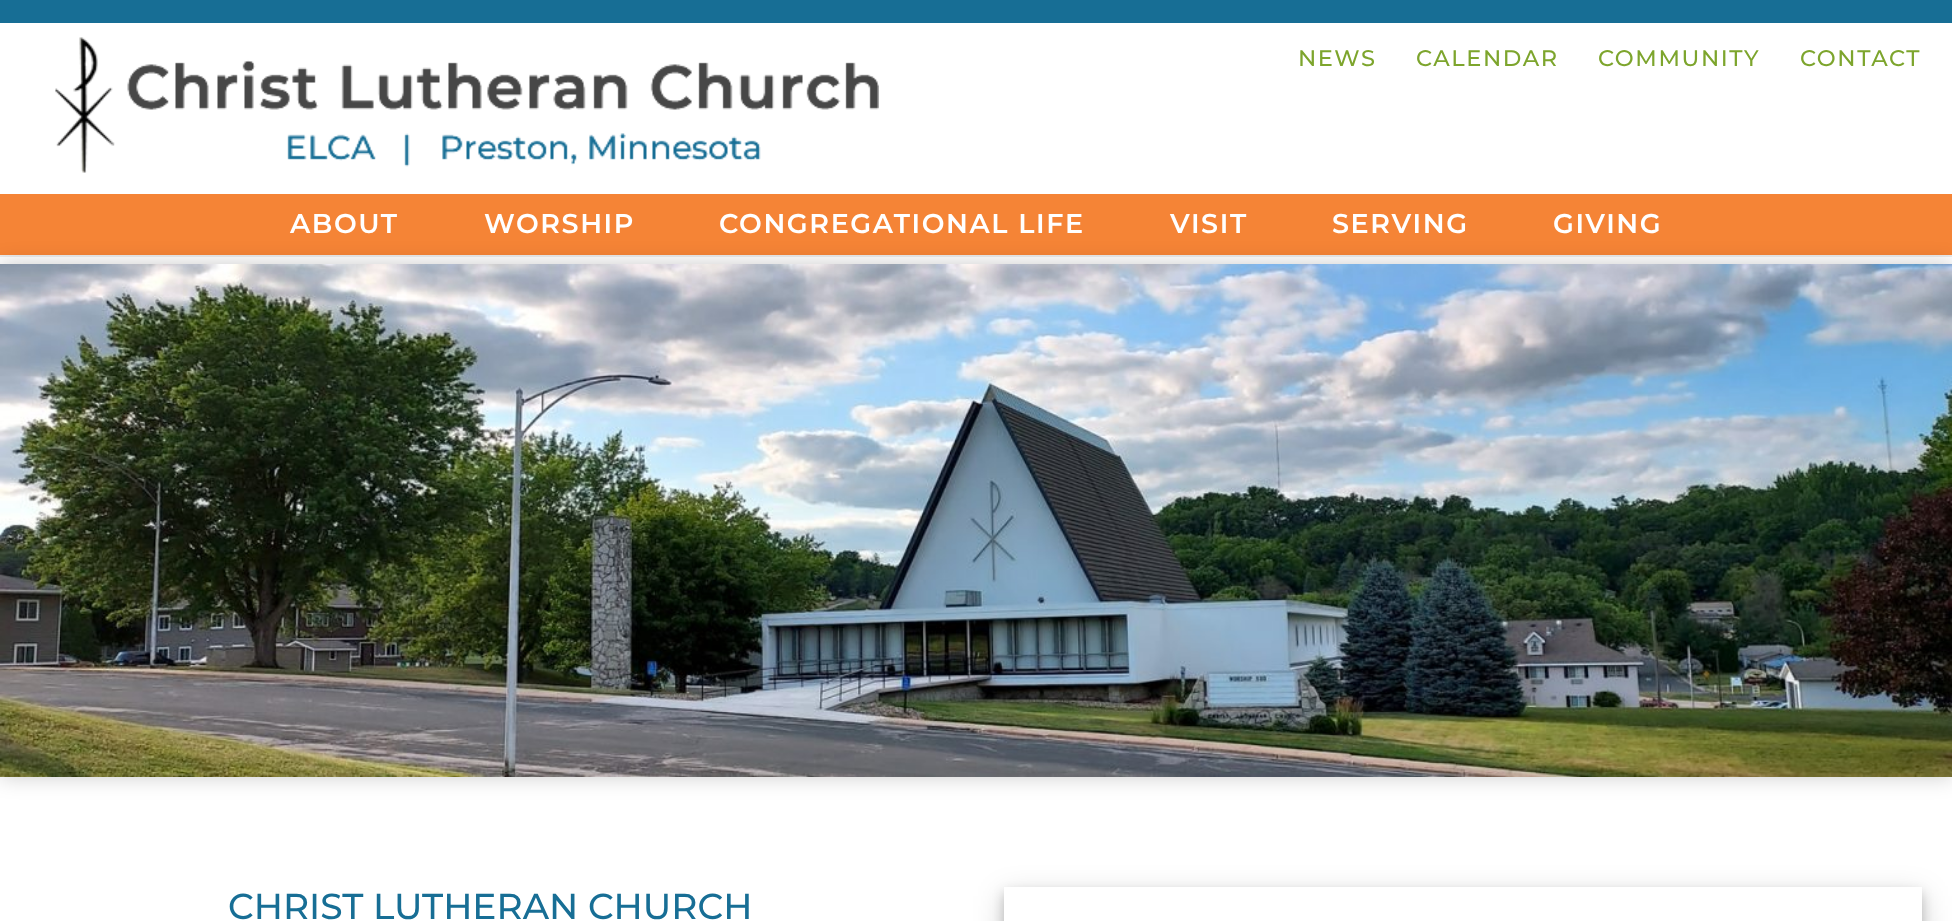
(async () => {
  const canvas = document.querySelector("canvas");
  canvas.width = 1952;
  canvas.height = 921;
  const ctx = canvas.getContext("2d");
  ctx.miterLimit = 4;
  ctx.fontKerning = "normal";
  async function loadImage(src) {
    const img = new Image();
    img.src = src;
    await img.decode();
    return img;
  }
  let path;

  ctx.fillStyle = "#ffffff";
  ctx.fillRect(0, 0, 1952, 921);
  ctx.fillStyle = "#176e95";
  ctx.fillRect(0, 0, 1952, 23);
  ctx.drawImage(await loadImage("img/1.png"), 55, 37, 824, 136);
  ctx.fillStyle = "#f58436";
  ctx.fillRect(0, 194, 1952, 61);
  ctx.fillStyle = "#ececec";
  ctx.fillRect(0, 255, 1952, 2);
  ctx.fillStyle = "rgba(0, 0, 0, 0.2)";
  ctx.filter = "blur(10.5px)";
  ctx.beginPath();
  ctx.rect(0, 264, 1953, 513);
  ctx.fill();
  ctx.filter = "none";
  ctx.drawImage(await loadImage("img/2.png"), 0, 264, 1952, 513);
  ctx.save();
  path = new Path2D("M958 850H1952V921H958ZM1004 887H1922V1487H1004Z");
  ctx.clip(path, "evenodd");
  ctx.fillStyle = "rgba(0, 0, 0, 0.19)";
  ctx.filter = "blur(15px)";
  ctx.beginPath();
  ctx.rect(1004, 896, 918, 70);
  ctx.fill();
  ctx.filter = "none";
  ctx.restore();
  ctx.save();
  path = new Path2D("M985 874H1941V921H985ZM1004 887H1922V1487H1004Z");
  ctx.clip(path, "evenodd");
  ctx.filter = "blur(6px)";
  ctx.beginPath();
  ctx.rect(1004, 893, 918, 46);
  ctx.fill();
  ctx.filter = "none";
  ctx.restore();
  ctx.letterSpacing = "1.6px";
  ctx.font = "500 22.5px Montserrat";
  ctx.fillStyle = "#7da52d";
  for (const [text, x, y] of [
    ["NEWS", 1298, 66],
    ["CALENDAR", 1416, 66],
    ["COMMUNITY", 1598, 66],
    ["CONTACT", 1800, 66],
  ]) {
    ctx.fillText(text, x, y);
  }
  ctx.font = "600 27px Montserrat";
  ctx.fillStyle = "#ffffff";
  for (const [text, x, y] of [
    ["ABOUT", 290, 233],
    ["WORSHIP", 484, 233],
    ["CONGREGATIONAL LIFE", 719, 233],
    ["VISIT", 1170, 233],
    ["SERVING", 1332, 233],
    ["GIVING", 1553, 233],
  ]) {
    ctx.fillText(text, x, y);
  }
  ctx.letterSpacing = "0px";
  ctx.font = "500 36px Montserrat";
  ctx.fillStyle = "#176e95";
  ctx.fillText("CHRIST LUTHERAN CHURCH", 228, 919);
})();
